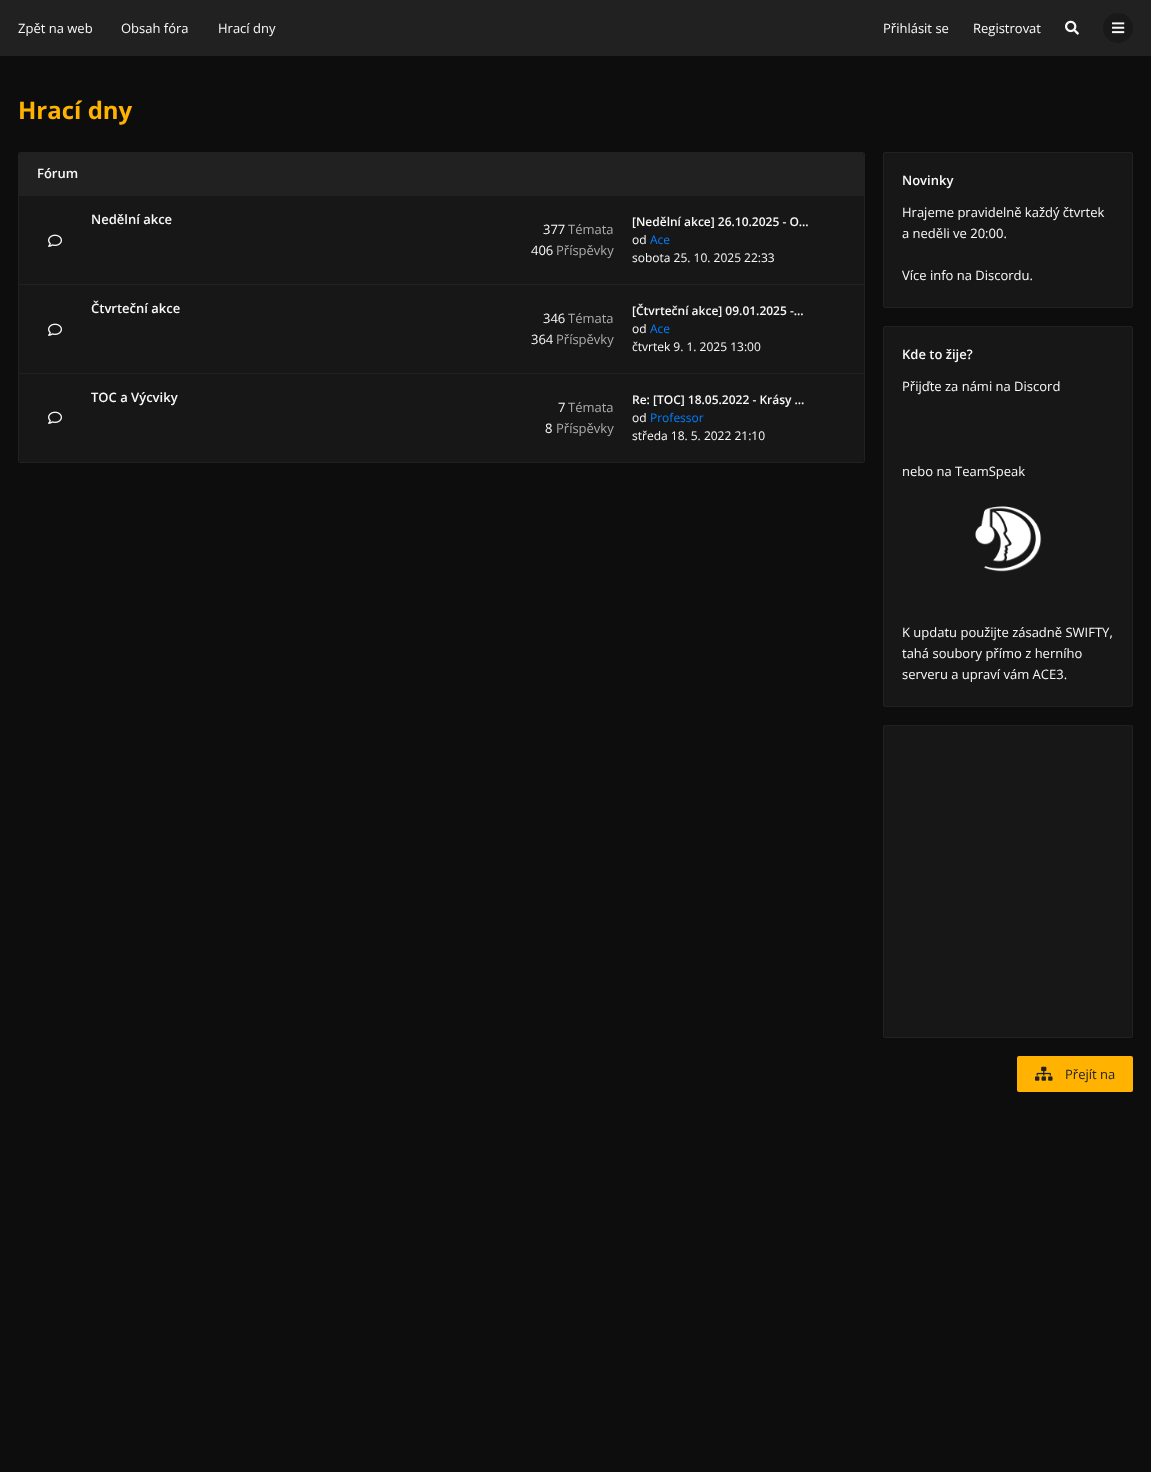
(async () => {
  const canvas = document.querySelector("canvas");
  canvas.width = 1151;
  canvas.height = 1472;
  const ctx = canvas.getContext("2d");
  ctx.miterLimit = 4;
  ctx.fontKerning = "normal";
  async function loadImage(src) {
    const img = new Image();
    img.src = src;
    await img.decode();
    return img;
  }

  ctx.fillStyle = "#0d0d0d";
  ctx.fillRect(0, 0, 1151, 1472);
  ctx.fillStyle = "#212121";
  ctx.fillRect(0, 0, 1151, 56);
  ctx.drawImage(await loadImage("img/1.png"), 1065, 20, 14, 15);
  ctx.fillStyle = "#191919";
  ctx.beginPath();
  ctx.arc(1118, 28, 15, 0, Math.PI * 2);
  ctx.fill();
  ctx.drawImage(await loadImage("img/2.png"), 1112, 22, 13, 12);
  ctx.beginPath();
  ctx.roundRect(18.5, 152.5, 846, 310, 1.5);
  ctx.strokeStyle = "#212121";
  ctx.stroke();
  ctx.fillStyle = "#212121";
  ctx.beginPath();
  ctx.roundRect(19, 153, 845, 43, [2, 2, 0, 0]);
  ctx.fill();
  ctx.fillStyle = "#171717";
  ctx.fillRect(19, 196, 845, 88);
  ctx.drawImage(await loadImage("img/3.png"), 48, 234, 14, 13);
  ctx.fillStyle = "#212121";
  ctx.fillRect(19, 284, 845, 1);
  ctx.fillStyle = "#171717";
  ctx.fillRect(19, 285, 845, 88);
  ctx.drawImage(await loadImage("img/3.png"), 48, 323, 14, 13);
  ctx.fillStyle = "#212121";
  ctx.fillRect(19, 373, 845, 1);
  ctx.fillStyle = "#171717";
  ctx.beginPath();
  ctx.roundRect(19, 374, 845, 88, [0, 0, 2, 2]);
  ctx.fill();
  ctx.drawImage(await loadImage("img/3.png"), 48, 411, 14, 13);
  ctx.beginPath();
  ctx.roundRect(883.5, 152.5, 249, 155, 1.5);
  ctx.fill();
  ctx.stroke();
  ctx.beginPath();
  ctx.roundRect(883.5, 326.5, 249, 380, 1.5);
  ctx.fill();
  ctx.stroke();
  ctx.drawImage(await loadImage("img/4.png"), 975, 506, 67, 66);
  ctx.beginPath();
  ctx.roundRect(883.5, 725.5, 249, 312, 1.5);
  ctx.fill();
  ctx.stroke();
  ctx.fillStyle = "#ffb300";
  ctx.beginPath();
  ctx.roundRect(1017, 1056, 116, 36, 2);
  ctx.fill();
  ctx.drawImage(await loadImage("img/5.png"), 1035, 1066, 18, 15);
  ctx.font = "13px Open Sans";
  ctx.fillStyle = "#f9f9f9";
  for (const [text, x, y] of [
    ["Zpět na web", 18, 33],
    ["Obsah fóra", 121, 33],
    ["Hrací dny", 218, 33],
    ["Přihlásit se", 883, 33],
    ["Registrovat", 973, 33],
  ]) {
    ctx.fillText(text, x, y);
  }
  ctx.font = "bold 24px Open Sans";
  ctx.fillStyle = "#ffb300";
  ctx.fillText("Hrací dny", 18, 119);
  ctx.font = "600 13px Open Sans";
  ctx.fillStyle = "#f9f9f9";
  ctx.fillText("Fórum", 37, 178);
  ctx.fillText("Nedělní akce", 91, 224);
  ctx.font = "13px Open Sans";
  ctx.fillText("377", 543, 234);
  ctx.fillStyle = "#acacac";
  ctx.fillText("Témata", 568, 234);
  ctx.fillStyle = "#f9f9f9";
  ctx.fillText("406", 531, 255);
  ctx.fillStyle = "#acacac";
  ctx.fillText("Příspěvky", 556, 255);
  ctx.font = "600 12px Open Sans";
  ctx.fillStyle = "#f9f9f9";
  ctx.fillText("[Nedělní akce] 26.10.2025 - O…", 632, 226);
  ctx.font = "12px Open Sans";
  ctx.fillText("od", 632, 244);
  ctx.fillStyle = "#0080ff";
  ctx.fillText("Ace", 650, 244);
  ctx.fillStyle = "#f9f9f9";
  ctx.fillText("sobota 25. 10. 2025 22:33", 632, 262);
  ctx.font = "600 13px Open Sans";
  ctx.fillText("Čtvrteční akce", 91, 313);
  ctx.font = "13px Open Sans";
  ctx.fillText("346", 543, 323);
  ctx.fillStyle = "#acacac";
  ctx.fillText("Témata", 568, 323);
  ctx.fillStyle = "#f9f9f9";
  ctx.fillText("364", 531, 344);
  ctx.fillStyle = "#acacac";
  ctx.fillText("Příspěvky", 556, 344);
  ctx.font = "600 12px Open Sans";
  ctx.fillStyle = "#f9f9f9";
  ctx.fillText("[Čtvrteční akce] 09.01.2025 -…", 632, 315);
  ctx.font = "12px Open Sans";
  ctx.fillText("od", 632, 333);
  ctx.fillStyle = "#0080ff";
  ctx.fillText("Ace", 650, 333);
  ctx.fillStyle = "#f9f9f9";
  ctx.fillText("čtvrtek 9. 1. 2025 13:00", 632, 351);
  ctx.font = "600 13px Open Sans";
  ctx.fillText("TOC a Výcviky", 91, 402);
  ctx.font = "13px Open Sans";
  ctx.fillText("7", 558, 412);
  ctx.fillStyle = "#acacac";
  ctx.fillText("Témata", 568, 412);
  ctx.fillStyle = "#f9f9f9";
  ctx.fillText("8", 545, 433);
  ctx.fillStyle = "#acacac";
  ctx.fillText("Příspěvky", 556, 433);
  ctx.font = "600 12px Open Sans";
  ctx.fillStyle = "#f9f9f9";
  ctx.fillText("Re: [TOC] 18.05.2022 - Krásy …", 632, 404);
  ctx.font = "12px Open Sans";
  ctx.fillText("od", 632, 422);
  ctx.fillStyle = "#0080ff";
  ctx.fillText("Professor", 650, 422);
  ctx.fillStyle = "#f9f9f9";
  ctx.fillText("středa 18. 5. 2022 21:10", 632, 440);
  ctx.font = "600 13px Open Sans";
  ctx.fillText("Novinky", 902, 185);
  ctx.font = "13px Open Sans";
  for (const [text, x, y] of [
    ["Hrajeme pravidelně každý čtvrtek", 902, 217],
    ["a neděli ve 20:00.", 902, 238],
    ["Více info na Discordu.", 902, 280],
  ]) {
    ctx.fillText(text, x, y);
  }
  ctx.font = "600 13px Open Sans";
  ctx.fillText("Kde to žije?", 902, 359);
  ctx.font = "13px Open Sans";
  for (const [text, x, y] of [
    ["Přijďte za námi na Discord", 902, 391],
    ["nebo na TeamSpeak", 902, 476],
    ["K updatu použijte zásadně SWIFTY,", 902, 637],
    ["tahá soubory přímo z herního", 902, 658],
    ["serveru a upraví vám ACE3.", 902, 679],
  ]) {
    ctx.fillText(text, x, y);
  }
  ctx.fillStyle = "#212121";
  ctx.fillText("Přejít na", 1065, 1079);
})();
